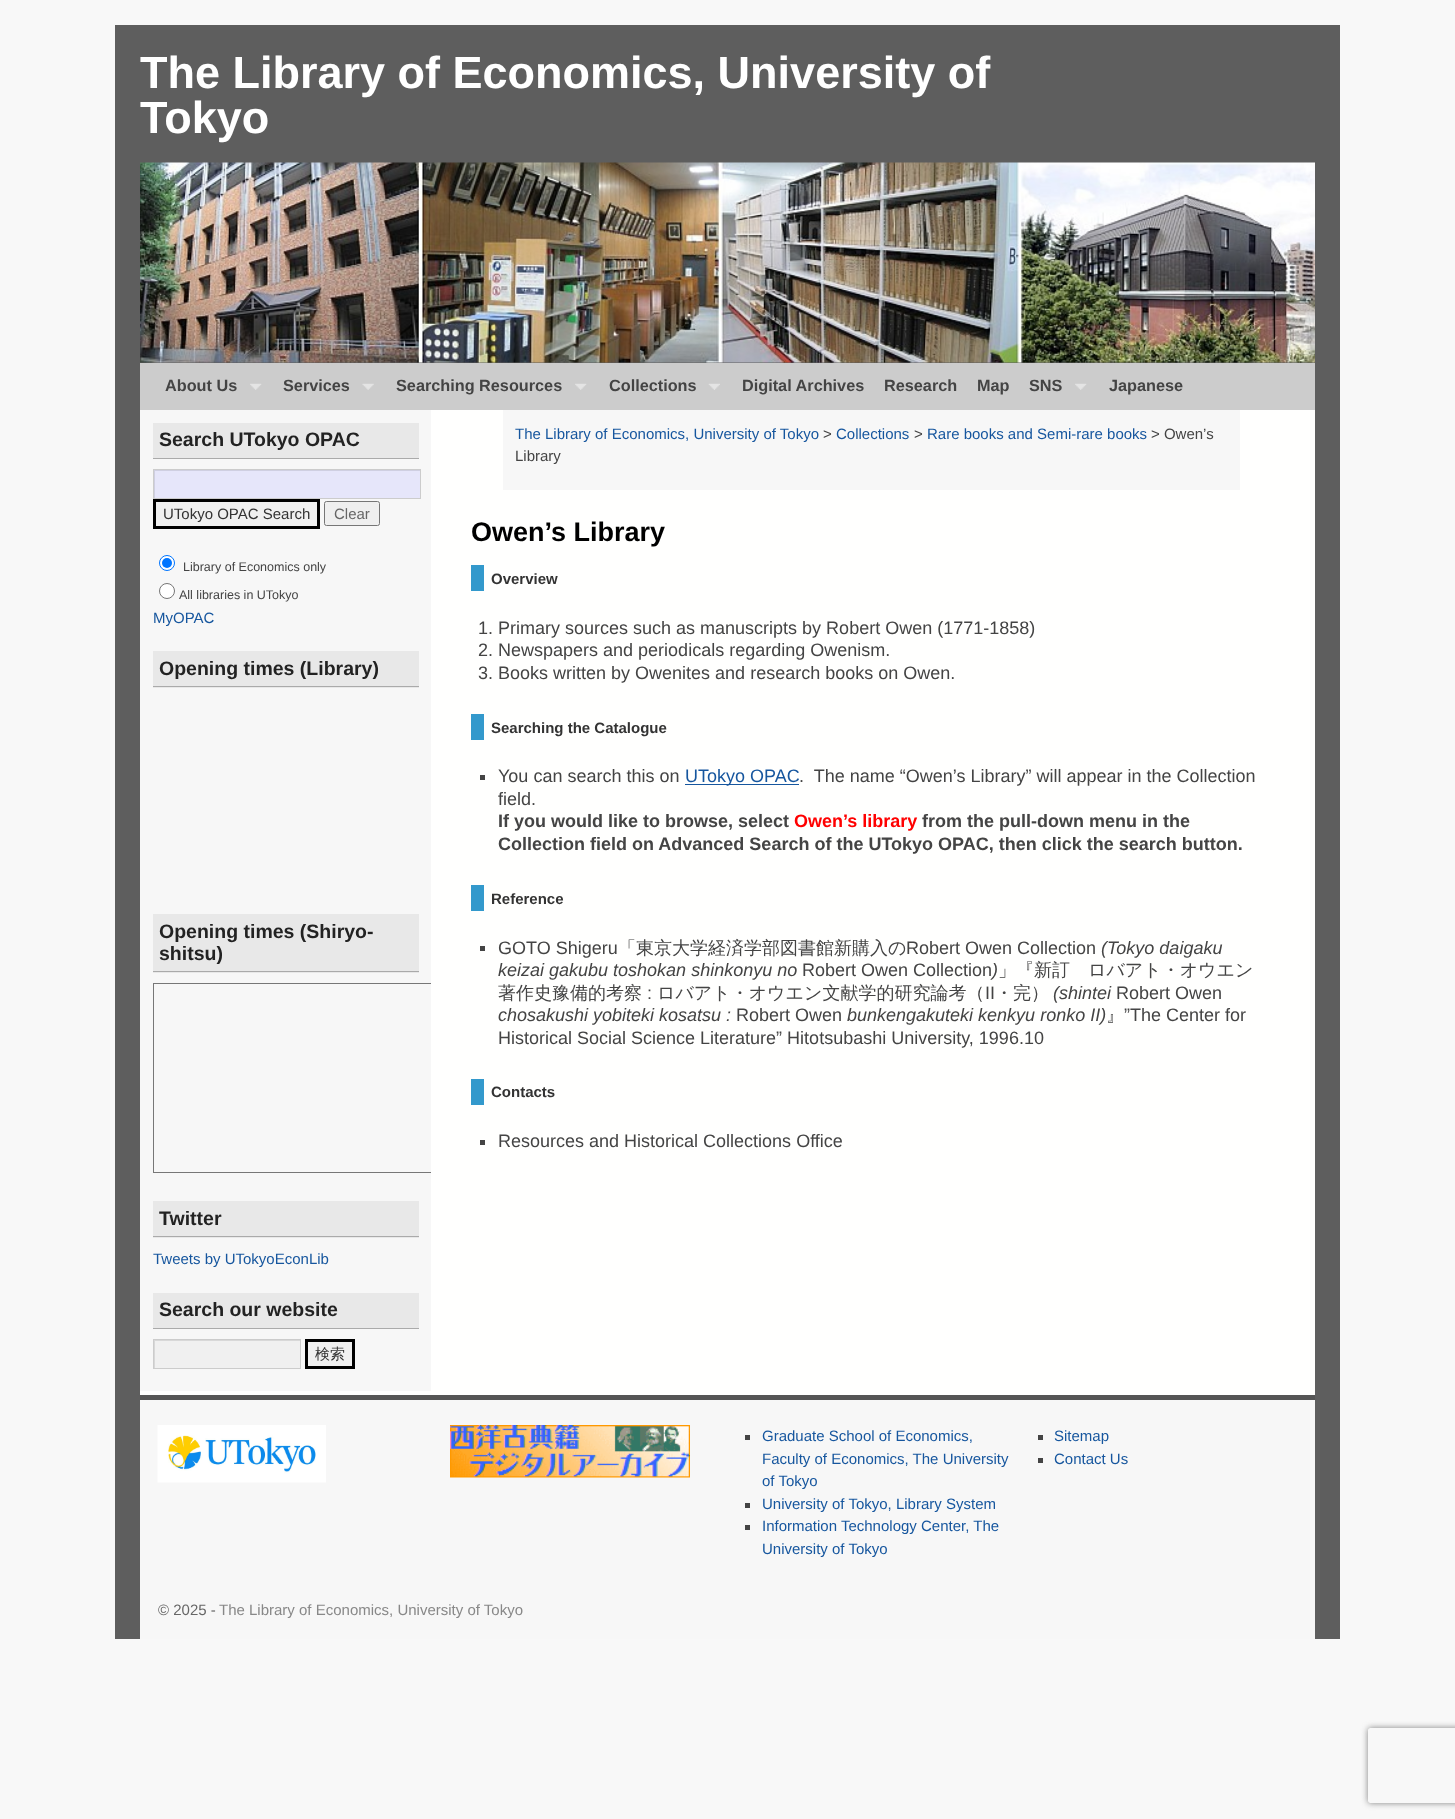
(async () => {
  const canvas = document.querySelector("canvas");
  canvas.width = 1455;
  canvas.height = 1819;
  const ctx = canvas.getContext("2d");
  ctx.miterLimit = 4;
  ctx.fontKerning = "normal";
  async function loadImage(src) {
    const img = new Image();
    img.src = src;
    await img.decode();
    return img;
  }
  let path;

  ctx.fillStyle = "#f8f8f8";
  ctx.fillRect(0, 0, 1455, 1819);
  ctx.fillStyle = "#5e5e5e";
  ctx.fillRect(115, 25, 1225, 1614);
  ctx.drawImage(await loadImage("img/1.png"), 140, 162, 1175, 201);
  ctx.fillStyle = "#cccccc";
  ctx.fillRect(140, 363, 1175, 47);
  ctx.drawImage(await loadImage("img/2.png"), 250, 383, 12, 7);
  ctx.drawImage(await loadImage("img/3.png"), 362, 383, 12, 7);
  ctx.drawImage(await loadImage("img/4.png"), 575, 383, 12, 7);
  ctx.drawImage(await loadImage("img/5.png"), 708, 383, 12, 7);
  ctx.drawImage(await loadImage("img/4.png"), 1075, 383, 12, 7);
  for (const [x, y, w, h, color] of [
    [140, 410, 1175, 985, "#fffffe"],
    [140, 410, 291, 981, "#f7f7f7"],
    [153, 423, 266, 35, "#e8e8e8"],
    [153, 458, 266, 1, "#aaaaaa"],
    [155, 471, 265, 27, "#e6e6fa"],
  ]) {
    ctx.fillStyle = color;
    ctx.fillRect(x, y, w, h);
  }
  ctx.save();
  ctx.beginPath();
  ctx.rect(154, 470, 266, 28);
  ctx.clip();
  ctx.fillStyle = "#cfcfe1";
  path = new Path2D("M30 346H544V621H30ZM155 471H421V499H155Z");
  ctx.fill(path, "evenodd");
  ctx.restore();
  ctx.strokeStyle = "#cccccc";
  ctx.strokeRect(153.5, 469.5, 267, 29);
  ctx.fillStyle = "#f0f0f0";
  ctx.beginPath();
  ctx.rect(154.5, 500.5, 164, 27);
  ctx.fill();
  ctx.strokeStyle = "#000000";
  ctx.lineWidth = 3;
  ctx.stroke();
  ctx.fillStyle = "#efefef";
  ctx.beginPath();
  ctx.roundRect(324.5, 501.5, 55, 24, 2);
  ctx.fill();
  ctx.strokeStyle = "#767676";
  ctx.lineWidth = 1;
  ctx.stroke();
  ctx.fillStyle = "#ffffff";
  ctx.beginPath();
  ctx.arc(167, 563, 7.5, 0, Math.PI * 2);
  ctx.fill();
  ctx.strokeStyle = "#0075ff";
  ctx.stroke();
  ctx.fillStyle = "#0075ff";
  ctx.beginPath();
  ctx.arc(167, 563, 5, 0, Math.PI * 2);
  ctx.fill();
  ctx.fillStyle = "#ffffff";
  ctx.beginPath();
  ctx.arc(167, 591, 7.5, 0, Math.PI * 2);
  ctx.fill();
  ctx.strokeStyle = "#767676";
  ctx.stroke();
  for (const [x, y, w, h, color] of [
    [153, 651, 266, 37, "#e8e8e8"],
    [153, 686, 266, 1, "#aaaaaa"],
    [153, 914, 266, 59, "#e8e8e8"],
    [153, 971, 266, 1, "#aaaaaa"],
    [153, 1201, 266, 37, "#e8e8e8"],
    [153, 1236, 266, 1, "#aaaaaa"],
    [153, 1293, 266, 35, "#e8e8e8"],
    [153, 1328, 266, 1, "#aaaaaa"],
    [155, 1341, 145, 27, "#f0f0f0"],
  ]) {
    ctx.fillStyle = color;
    ctx.fillRect(x, y, w, h);
  }
  ctx.save();
  ctx.beginPath();
  ctx.rect(154, 1340, 146, 28);
  ctx.clip();
  ctx.fillStyle = "#d8d8d8";
  path = new Path2D("M30 1216H424V1491H30ZM155 1341H301V1369H155Z");
  ctx.fill(path, "evenodd");
  ctx.restore();
  ctx.strokeStyle = "#cccccc";
  ctx.strokeRect(153.5, 1339.5, 147, 29);
  ctx.beginPath();
  ctx.rect(306.5, 1340.5, 47, 27);
  ctx.fill();
  ctx.strokeStyle = "#000000";
  ctx.lineWidth = 3;
  ctx.stroke();
  for (const [x, y, w, h, color] of [
    [503, 410, 737, 80, "#f7f7f7"],
    [471, 565, 13, 26, "#3399cc"],
    [471, 714, 13, 26, "#3399cc"],
    [480, 775, 5, 5, "#444444"],
    [685, 784, 114, 1, "#16569e"],
    [471, 885, 13, 26, "#3399cc"],
    [480, 946, 5, 5, "#444444"],
    [471, 1079, 13, 26, "#3399cc"],
    [480, 1140, 5, 5, "#444444"],
    [140, 1400, 1175, 239, "#f7f7f7"],
    [140, 1395, 1175, 5, "#555555"],
  ]) {
    ctx.fillStyle = color;
    ctx.fillRect(x, y, w, h);
  }
  ctx.drawImage(await loadImage("img/6.png"), 157, 1425, 169, 58);
  ctx.drawImage(await loadImage("img/7.png"), 450, 1425, 240, 53);
  for (const [x, y, w, h, color] of [
    [745, 1435, 5, 5, "#444444"],
    [745, 1503, 5, 5, "#444444"],
    [745, 1525, 5, 5, "#444444"],
    [1038, 1435, 5, 5, "#444444"],
    [1038, 1458, 5, 5, "#444444"],
  ]) {
    ctx.fillStyle = color;
    ctx.fillRect(x, y, w, h);
  }
  ctx.save();
  path = new Path2D("M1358 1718H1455V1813H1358ZM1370.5 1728H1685.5C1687 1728 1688 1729 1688 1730.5V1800.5C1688 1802 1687 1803 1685.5 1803H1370.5C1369 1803 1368 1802 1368 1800.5V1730.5C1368 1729 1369 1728 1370.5 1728Z");
  ctx.clip(path, "evenodd");
  ctx.fillStyle = "#808080";
  ctx.filter = "blur(3px)";
  ctx.beginPath();
  ctx.roundRect(1368, 1728, 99, 75, 2.5);
  ctx.fill();
  ctx.filter = "none";
  ctx.restore();
  ctx.font = "bold 45px Liberation Sans";
  ctx.fillStyle = "#ffffff";
  ctx.fillText("The Library of Economics, University of", 140, 88);
  ctx.fillText("Tokyo", 140, 133);
  ctx.font = "bold 16.25px Liberation Sans";
  ctx.fillStyle = "#444444";
  for (const [text, x, y] of [
    ["About Us", 165, 391],
    ["Services", 283, 391],
    ["Searching Resources", 396, 391],
    ["Collections", 609, 391],
    ["Digital Archives", 742, 391],
    ["Research", 884, 391],
    ["Map", 977, 391],
    ["SNS", 1029, 391],
    ["Japanese", 1109, 391],
  ]) {
    ctx.fillText(text, x, y);
  }
  ctx.font = "bold 19.5px Liberation Sans";
  ctx.fillStyle = "#222222";
  ctx.fillText("Search UTokyo OPAC", 159, 446);
  ctx.font = "15px Liberation Sans";
  ctx.fillStyle = "#333333";
  ctx.fillText("UTokyo OPAC Search", 163, 519);
  ctx.fillStyle = "#666666";
  ctx.fillText("Clear", 334, 519);
  ctx.font = "12.5px Liberation Sans";
  ctx.fillStyle = "#444444";
  ctx.fillText("Library of Economics only", 183, 571);
  ctx.fillText("All libraries in UTokyo", 179, 599);
  ctx.font = "15px Liberation Sans";
  ctx.fillStyle = "#16569e";
  ctx.fillText("MyOPAC", 153, 623);
  ctx.font = "bold 19.5px Liberation Sans";
  ctx.fillStyle = "#222222";
  for (const [text, x, y] of [
    ["Opening times (Library)", 159, 675],
    ["Opening times (Shiryo-", 159, 938],
    ["shitsu)", 159, 960],
    ["Twitter", 159, 1225],
  ]) {
    ctx.fillText(text, x, y);
  }
  ctx.font = "15px Liberation Sans";
  ctx.fillStyle = "#16569e";
  ctx.fillText("Tweets by UTokyoEconLib", 153, 1264);
  ctx.font = "bold 19.5px Liberation Sans";
  ctx.fillStyle = "#222222";
  ctx.fillText("Search our website", 159, 1316);
  ctx.font = "500 15px WenQuanYi Zen Hei";
  ctx.fillStyle = "#333333";
  ctx.fillText("検索", 315, 1359);
  ctx.font = "15px Liberation Sans";
  ctx.fillStyle = "#16569e";
  ctx.fillText("The Library of Economics, University of Tokyo", 515, 439);
  ctx.fillStyle = "#444444";
  ctx.fillText(">", 823, 439);
  ctx.fillStyle = "#16569e";
  ctx.fillText("Collections", 836, 439);
  ctx.fillStyle = "#444444";
  ctx.fillText(">", 914, 439);
  ctx.fillStyle = "#16569e";
  ctx.fillText("Rare books and Semi-rare books", 927, 439);
  ctx.fillStyle = "#444444";
  ctx.fillText("> Owen’s", 1151, 439);
  ctx.fillText("Library", 515, 461);
  ctx.font = "bold 27px Liberation Sans";
  ctx.fillStyle = "#000000";
  ctx.fillText("Owen’s Library", 471, 541);
  ctx.font = "bold 15px Liberation Sans";
  ctx.fillStyle = "#333333";
  ctx.fillText("Overview", 491, 584);
  ctx.font = "18px Liberation Sans";
  ctx.fillStyle = "#444444";
  for (const [text, x, y] of [
    ["1. Primary sources such as manuscripts by Robert Owen (1771-1858)", 478, 634],
    ["2. Newspapers and periodicals regarding Owenism.", 478, 656],
    ["3. Books written by Owenites and research books on Owen.", 478, 679],
  ]) {
    ctx.fillText(text, x, y);
  }
  ctx.font = "bold 15px Liberation Sans";
  ctx.fillStyle = "#333333";
  ctx.fillText("Searching the Catalogue", 491, 733);
  ctx.font = "18px Liberation Sans";
  ctx.fillStyle = "#444444";
  ctx.fillText("You can search this on", 498, 782);
  ctx.fillStyle = "#16569e";
  ctx.fillText("UTokyo OPAC", 685, 782);
  ctx.fillStyle = "#444444";
  ctx.fillText(".  The name “Owen’s Library” will appear in the Collection", 799, 782);
  ctx.fillText("field.", 498, 805);
  ctx.font = "bold 18px Liberation Sans";
  ctx.fillText("If you would like to browse, select", 498, 827);
  ctx.fillStyle = "#ff0000";
  ctx.fillText("Owen’s library", 794, 827);
  ctx.fillStyle = "#444444";
  ctx.fillText("from the pull-down menu in the", 922, 827);
  ctx.fillText("Collection field on Advanced Search of the UTokyo OPAC, then click the search button.", 498, 850);
  ctx.font = "bold 15px Liberation Sans";
  ctx.fillStyle = "#333333";
  ctx.fillText("Reference", 491, 904);
  ctx.font = "18px Liberation Sans";
  ctx.fillStyle = "#444444";
  ctx.fillText("GOTO Shigeru", 498, 954);
  ctx.font = "500 18px WenQuanYi Zen Hei";
  ctx.fillText("「東京大学経済学部図書館新購入の", 618, 954);
  ctx.font = "18px Liberation Sans";
  ctx.fillText("Robert Owen Collection", 906, 954);
  ctx.font = "italic 18px Liberation Sans";
  ctx.fillText("(Tokyo daigaku", 1101, 954);
  ctx.fillText("keizai gakubu toshokan shinkonyu no", 498, 976);
  ctx.font = "18px Liberation Sans";
  ctx.fillText("Robert Owen Collection", 802, 976);
  ctx.font = "italic 18px Liberation Sans";
  ctx.fillText(")", 992, 976);
  ctx.font = "500 18px WenQuanYi Zen Hei";
  ctx.fillText("」『新訂　ロバアト・オウエン", 998, 976);
  ctx.fillText("著作史豫備的考察", 498, 999);
  ctx.font = "18px Liberation Sans";
  ctx.fillText(":", 647, 999);
  ctx.font = "500 18px WenQuanYi Zen Hei";
  ctx.fillText("ロバアト・オウエン文献学的研究論考（", 657, 999);
  ctx.font = "18px Liberation Sans";
  ctx.fillText("II", 985, 999);
  ctx.font = "500 18px WenQuanYi Zen Hei";
  ctx.fillText("・完）", 995, 999);
  ctx.font = "italic 18px Liberation Sans";
  ctx.fillText("(shintei", 1053, 999);
  ctx.font = "18px Liberation Sans";
  ctx.fillText("Robert Owen", 1116, 999);
  ctx.font = "italic 18px Liberation Sans";
  ctx.fillText("chosakushi yobiteki kosatsu :", 498, 1021);
  ctx.font = "18px Liberation Sans";
  ctx.fillText("Robert Owen", 736, 1021);
  ctx.font = "italic 18px Liberation Sans";
  ctx.fillText("bunkengakuteki kenkyu ronko II)", 847, 1021);
  ctx.font = "500 18px WenQuanYi Zen Hei";
  ctx.fillText("』", 1106, 1021);
  ctx.font = "18px Liberation Sans";
  ctx.fillText("”The Center for", 1124, 1021);
  ctx.fillText("Historical Social Science Literature” Hitotsubashi University, 1996.10", 498, 1044);
  ctx.font = "bold 15px Liberation Sans";
  ctx.fillStyle = "#333333";
  ctx.fillText("Contacts", 491, 1097);
  ctx.font = "18px Liberation Sans";
  ctx.fillStyle = "#444444";
  ctx.fillText("Resources and Historical Collections Office", 498, 1147);
  ctx.save();
  ctx.beginPath();
  ctx.rect(140, 410, 291, 981);
  ctx.clip();
  ctx.strokeStyle = "#777777";
  ctx.lineWidth = 1;
  ctx.strokeRect(153.5, 983.5, 376, 189);
  ctx.restore();
  ctx.font = "15px Liberation Sans";
  ctx.fillStyle = "#16569e";
  for (const [text, x, y] of [
    ["Graduate School of Economics,", 762, 1441],
    ["Faculty of Economics, The University", 762, 1464],
    ["of Tokyo", 762, 1486],
    ["University of Tokyo, Library System", 762, 1509],
    ["Information Technology Center, The", 762, 1531],
    ["University of Tokyo", 762, 1554],
    ["Sitemap", 1054, 1441],
    ["Contact Us", 1054, 1464],
  ]) {
    ctx.fillText(text, x, y);
  }
  ctx.fillStyle = "#666666";
  ctx.fillText("© 2025 -", 158, 1615);
  ctx.fillStyle = "#888888";
  ctx.fillText("The Library of Economics, University of Tokyo", 219, 1615);
})();
